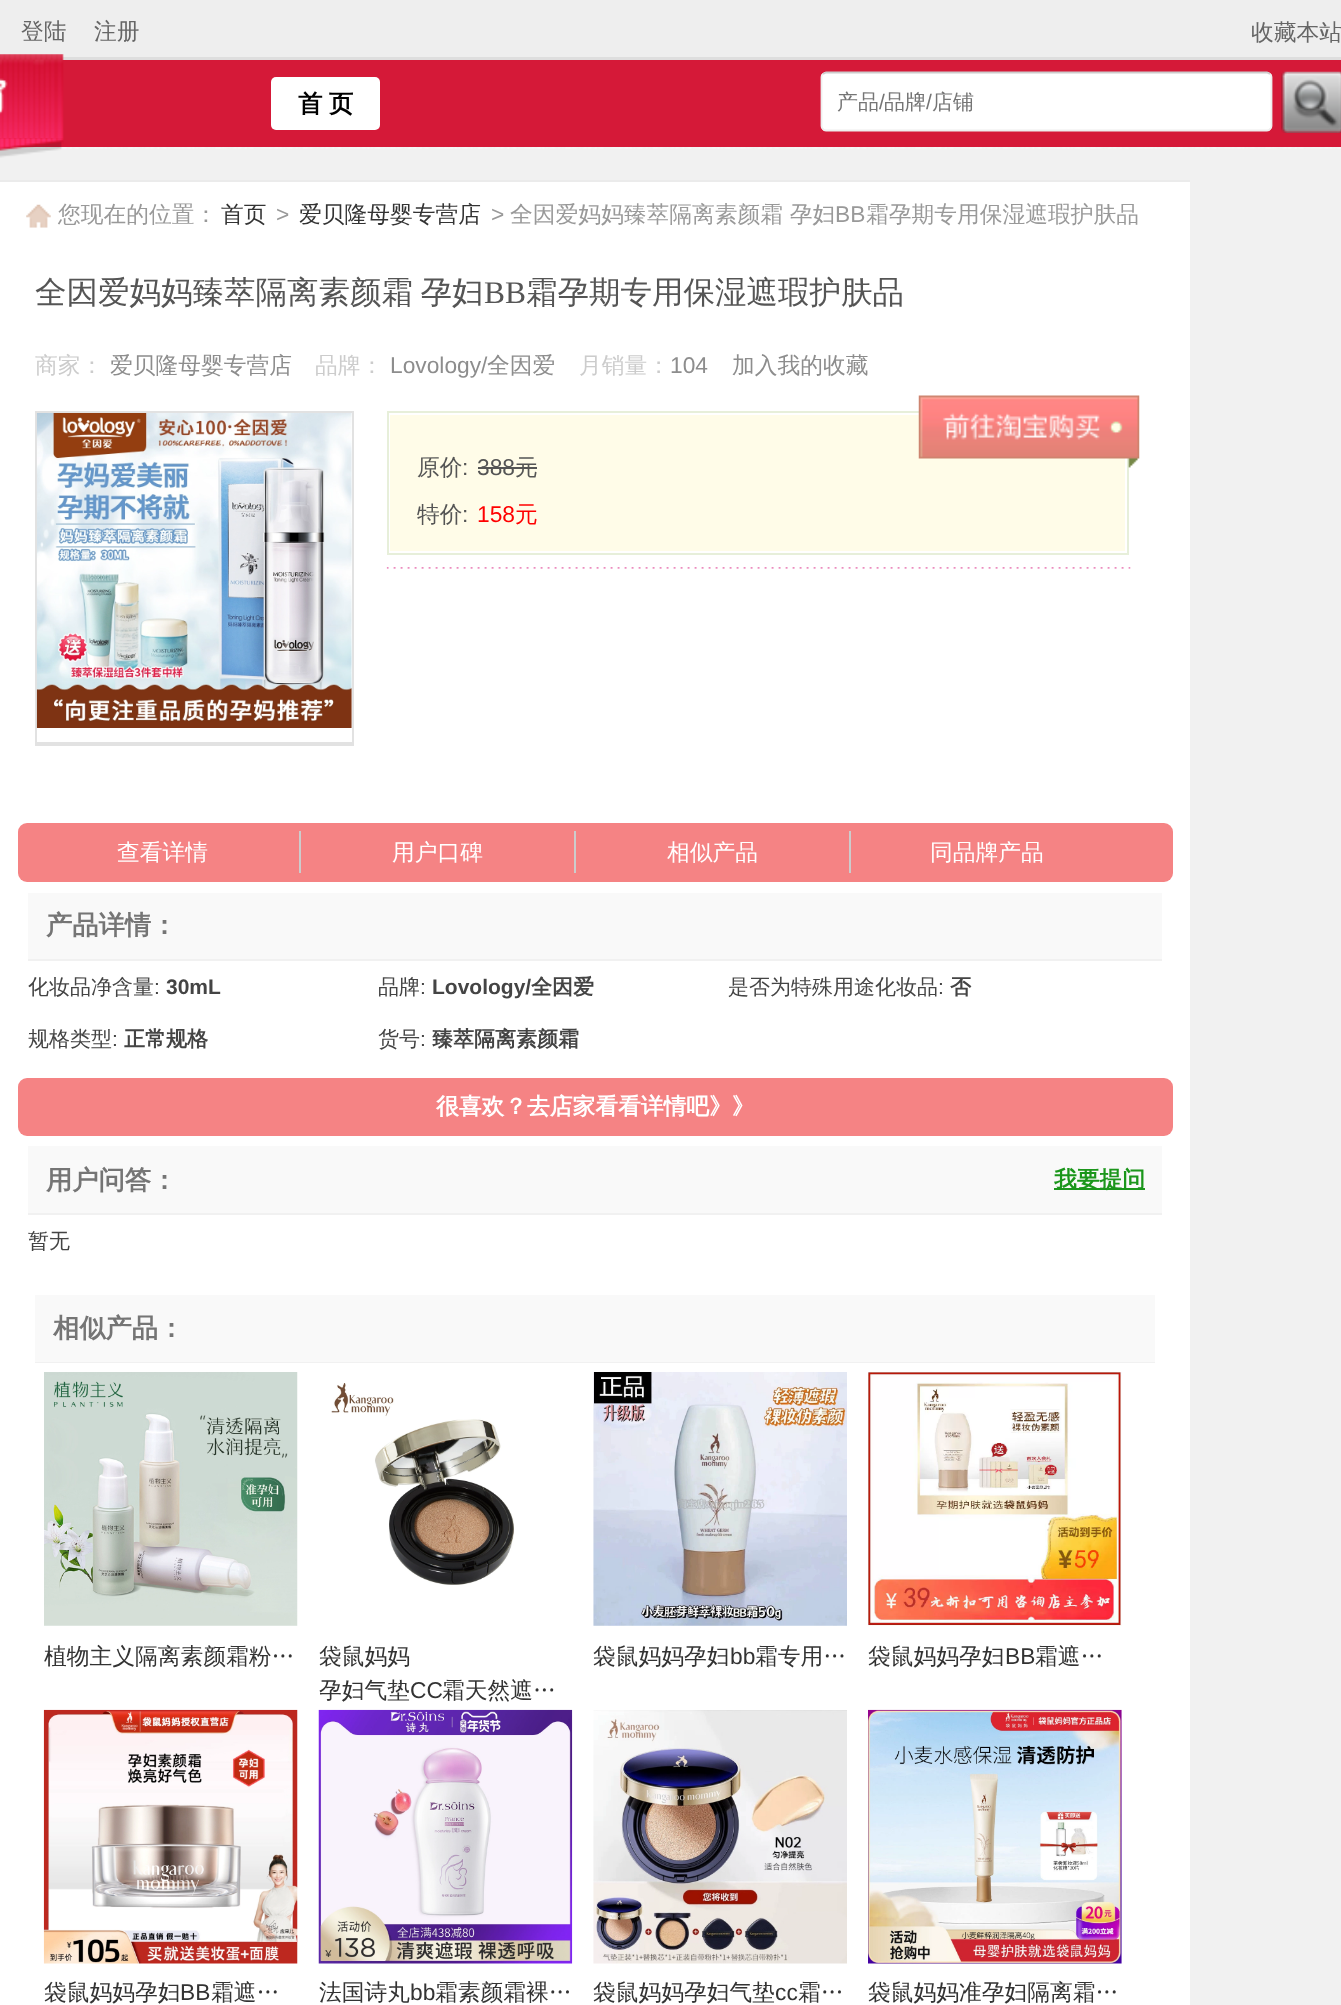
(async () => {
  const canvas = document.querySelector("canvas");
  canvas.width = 1341;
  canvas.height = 2005;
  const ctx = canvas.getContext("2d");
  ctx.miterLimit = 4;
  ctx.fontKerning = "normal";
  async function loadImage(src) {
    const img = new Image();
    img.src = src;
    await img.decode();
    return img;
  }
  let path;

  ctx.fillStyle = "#ffffff";
  ctx.fillRect(0, 0, 1341, 2005);
  ctx.drawImage(await loadImage("img/1.png"), 0, 147, 1341, 2);
  for (const [x, y, w, h, color] of [
    [0, 0, 1341, 57, "#eeeeee"],
    [62, 57, 1279, 3, "#dedede"],
    [0, 60, 1341, 87, "#d51938"],
  ]) {
    ctx.fillStyle = color;
    ctx.fillRect(x, y, w, h);
  }
  ctx.drawImage(await loadImage("img/2.png"), 0, 54, 64, 85);
  ctx.fillStyle = "#f1f1f1";
  ctx.fillRect(0, 149, 1341, 1856);
  ctx.drawImage(await loadImage("img/3.png"), 0, 138, 64, 20);
  ctx.fillStyle = "#ffffff";
  ctx.beginPath();
  ctx.roundRect(271, 77, 109, 53, 5);
  ctx.fill();
  ctx.beginPath();
  ctx.roundRect(821, 72, 451, 59, 5);
  ctx.fill();
  path = new Path2D("M823 74L826 72.5H1267L1270 74");
  ctx.strokeStyle = "#cccccc";
  ctx.lineWidth = 1.8;
  ctx.stroke(path);
  path = new Path2D("M1270 74C1271 74.5 1271.5 76 1271.5 77V126C1271.5 127 1271 128.5 1270 129C1269.5 130 1268 130.5 1267 130.5H826C825 130.5 823.5 130 823 129C822 128.5 821.5 127 821.5 126V77C821.5 76 822 74.5 823 74");
  ctx.strokeStyle = "#eeeeee";
  ctx.stroke(path);
  ctx.drawImage(await loadImage("img/4.png"), 1281, 71, 60, 62);
  ctx.fillStyle = "#ebebeb";
  ctx.fillRect(0, 180, 1190, 2);
  ctx.fillStyle = "#ffffff";
  ctx.fillRect(0, 182, 1190, 1823);
  ctx.drawImage(await loadImage("img/5.png"), 26, 204, 25, 24);
  ctx.strokeStyle = "#e2e2e2";
  ctx.lineWidth = 2;
  ctx.strokeRect(36, 412, 317, 333);
  ctx.fillStyle = "#e2e2e2";
  ctx.fillRect(37, 742, 315, 2);
  ctx.drawImage(await loadImage("img/6.png"), 36, 413, 316, 315);
  ctx.strokeStyle = "#e7efda";
  ctx.strokeRect(388, 412, 740, 142);
  ctx.fillStyle = "#fffce8";
  ctx.fillRect(390, 415, 735, 136);
  ctx.drawImage(await loadImage("img/7.png"), 918, 395, 222, 73);
  ctx.fillStyle = "#555555";
  ctx.fillRect(478, 467, 59, 2);
  ctx.drawImage(await loadImage("img/8.png"), 386, 567, 745, 2);
  ctx.fillStyle = "#f58384";
  ctx.beginPath();
  ctx.roundRect(18, 823, 1155, 59, 9);
  ctx.fill();
  for (const [x, y, w, h, color] of [
    [299, 831, 2, 42, "#cccccc"],
    [574, 831, 2, 42, "#cccccc"],
    [849, 831, 2, 42, "#cccccc"],
    [28, 893, 1134, 66, "#f9f9f9"],
    [28, 959, 1134, 2, "#f1f1f1"],
  ]) {
    ctx.fillStyle = color;
    ctx.fillRect(x, y, w, h);
  }
  ctx.fillStyle = "#f58384";
  ctx.beginPath();
  ctx.roundRect(18, 1078, 1155, 58, 9);
  ctx.fill();
  for (const [x, y, w, h, color] of [
    [28, 1146, 1134, 67, "#f9f9f9"],
    [28, 1213, 1134, 2, "#f1f1f1"],
    [1054, 1188, 91, 2, "#1b961b"],
    [35, 1295, 1120, 67, "#f9f9f9"],
    [35, 1362, 1120, 1, "#f1f1f1"],
  ]) {
    ctx.fillStyle = color;
    ctx.fillRect(x, y, w, h);
  }
  ctx.drawImage(await loadImage("img/9.png"), 44, 1372, 254, 254);
  ctx.drawImage(await loadImage("img/10.png"), 331, 1383, 183, 202);
  ctx.drawImage(await loadImage("img/11.png"), 593, 1372, 254, 254);
  ctx.drawImage(await loadImage("img/12.png"), 868, 1372, 254, 254);
  ctx.drawImage(await loadImage("img/13.png"), 43, 1709, 255, 255);
  ctx.drawImage(await loadImage("img/14.png"), 318, 1709, 255, 255);
  ctx.drawImage(await loadImage("img/15.png"), 593, 1710, 254, 254);
  ctx.drawImage(await loadImage("img/16.png"), 868, 1709, 254, 255);
  ctx.font = "500 22.75px WenQuanYi Zen Hei";
  ctx.fillStyle = "#666666";
  for (const [text, x, y] of [
    ["登陆", 21, 39],
    ["注册", 94, 39],
    ["收藏本站", 1251, 40],
  ]) {
    ctx.fillText(text, x, y);
  }
  ctx.wordSpacing = "-1px";
  ctx.font = "bold 24.5px WenQuanYi Zen Hei";
  ctx.fillStyle = "#000000";
  ctx.fillText("首 页", 298, 112);
  ctx.wordSpacing = "0px";
  ctx.font = "500 21px WenQuanYi Zen Hei";
  ctx.fillStyle = "#757575";
  ctx.fillText("产品", 837, 109);
  ctx.font = "21px Liberation Sans";
  ctx.fillText("/", 879, 109);
  ctx.font = "500 21px WenQuanYi Zen Hei";
  ctx.fillText("品牌", 884, 109);
  ctx.font = "21px Liberation Sans";
  ctx.fillText("/", 926, 109);
  ctx.font = "500 21px WenQuanYi Zen Hei";
  ctx.fillText("店铺", 932, 109);
  ctx.font = "500 22.75px WenQuanYi Zen Hei";
  ctx.fillStyle = "#999999";
  ctx.fillText("您现在的位置：", 58, 222);
  ctx.fillStyle = "#333333";
  ctx.fillText("首页", 221, 222);
  ctx.font = "22.75px Liberation Sans";
  ctx.fillStyle = "#999999";
  ctx.fillText(">", 276, 222);
  ctx.font = "500 22.75px WenQuanYi Zen Hei";
  ctx.fillStyle = "#333333";
  ctx.fillText("爱贝隆母婴专营店", 299, 222);
  ctx.font = "22.75px Liberation Sans";
  ctx.fillStyle = "#999999";
  ctx.fillText(">", 491, 222);
  ctx.font = "500 22.75px WenQuanYi Zen Hei";
  ctx.fillText("全因爱妈妈臻萃隔离素颜霜 孕妇", 510, 222);
  ctx.font = "22.75px Liberation Sans";
  ctx.fillText("BB", 835, 222);
  ctx.font = "500 22.75px WenQuanYi Zen Hei";
  ctx.fillText("霜孕期专用保湿遮瑕护肤品", 866, 222);
  ctx.wordSpacing = "-2px";
  ctx.font = "500 31.5px WenQuanYi Zen Hei";
  ctx.fillStyle = "#555555";
  ctx.fillText("全因爱妈妈臻萃隔离素颜霜 孕妇", 35, 303);
  ctx.wordSpacing = "0px";
  ctx.font = "31.5px Liberation Serif";
  ctx.fillText("BB", 484, 303);
  ctx.font = "500 31.5px WenQuanYi Zen Hei";
  ctx.fillText("霜孕期专用保湿遮瑕护肤品", 526, 303);
  ctx.font = "500 22.75px WenQuanYi Zen Hei";
  ctx.fillStyle = "#cccccc";
  ctx.fillText("商家：", 35, 373);
  ctx.fillStyle = "#8d8d8d";
  ctx.fillText("爱贝隆母婴专营店", 110, 373);
  ctx.fillStyle = "#cccccc";
  ctx.fillText("品牌：", 315, 373);
  ctx.font = "22.75px Liberation Sans";
  ctx.fillStyle = "#8d8d8d";
  ctx.fillText("Lovology/", 390, 373);
  ctx.font = "500 22.75px WenQuanYi Zen Hei";
  ctx.fillText("全因爱", 487, 373);
  ctx.fillStyle = "#cccccc";
  ctx.fillText("月销量：", 579, 373);
  ctx.font = "22.75px Liberation Sans";
  ctx.fillStyle = "#8d8d8d";
  ctx.fillText("104", 670, 373);
  ctx.font = "500 22.75px WenQuanYi Zen Hei";
  ctx.fillText("加入我的收藏", 732, 373);
  ctx.fillStyle = "#555555";
  ctx.fillText("原价", 417, 475);
  ctx.font = "22.75px Liberation Sans";
  ctx.fillText(":", 462, 475);
  ctx.fillText("388", 477, 475);
  ctx.font = "500 22.75px WenQuanYi Zen Hei";
  ctx.fillText("元", 515, 475);
  ctx.fillText("特价", 417, 522);
  ctx.font = "22.75px Liberation Sans";
  ctx.fillText(":", 462, 522);
  ctx.fillStyle = "#ff0000";
  ctx.fillText("158", 477, 522);
  ctx.font = "500 22.75px WenQuanYi Zen Hei";
  ctx.fillText("元", 515, 522);
  ctx.fillStyle = "#ffffff";
  for (const [text, x, y] of [
    ["查看详情", 117, 860],
    ["用户口碑", 392, 860],
    ["相似产品", 667, 860],
    ["同品牌产品", 930, 860],
  ]) {
    ctx.fillText(text, x, y);
  }
  ctx.font = "bold 26.25px WenQuanYi Zen Hei";
  ctx.fillStyle = "#757575";
  ctx.fillText("产品详情：", 46, 934);
  ctx.font = "500 21px WenQuanYi Zen Hei";
  ctx.fillStyle = "#444444";
  ctx.fillText("化妆品净含量", 28, 994);
  ctx.font = "21px Liberation Sans";
  ctx.fillText(":", 154, 994);
  ctx.font = "bold 21px Liberation Sans";
  ctx.fillText("30mL", 166, 994);
  ctx.font = "500 21px WenQuanYi Zen Hei";
  ctx.fillText("品牌", 378, 994);
  ctx.font = "21px Liberation Sans";
  ctx.fillText(":", 420, 994);
  ctx.font = "bold 21px Liberation Sans";
  ctx.fillText("Lovology/", 432, 994);
  ctx.font = "bold 21px WenQuanYi Zen Hei";
  ctx.fillText("全因爱", 531, 994);
  ctx.font = "500 21px WenQuanYi Zen Hei";
  ctx.fillText("是否为特殊用途化妆品", 728, 994);
  ctx.font = "21px Liberation Sans";
  ctx.fillText(":", 938, 994);
  ctx.font = "bold 21px WenQuanYi Zen Hei";
  ctx.fillText("否", 950, 994);
  ctx.font = "500 21px WenQuanYi Zen Hei";
  ctx.fillText("规格类型", 28, 1046);
  ctx.font = "21px Liberation Sans";
  ctx.fillText(":", 112, 1046);
  ctx.font = "bold 21px WenQuanYi Zen Hei";
  ctx.fillText("正常规格", 124, 1046);
  ctx.font = "500 21px WenQuanYi Zen Hei";
  ctx.fillText("货号", 378, 1046);
  ctx.font = "21px Liberation Sans";
  ctx.fillText(":", 420, 1046);
  ctx.font = "bold 21px WenQuanYi Zen Hei";
  ctx.fillText("臻萃隔离素颜霜", 432, 1046);
  ctx.font = "bold 22.75px WenQuanYi Zen Hei";
  ctx.fillStyle = "#ffffff";
  ctx.fillText("很喜欢？去店家看看详情吧》》", 436, 1114);
  ctx.font = "bold 26.25px WenQuanYi Zen Hei";
  ctx.fillStyle = "#757575";
  ctx.fillText("用户问答：", 46, 1189);
  ctx.font = "bold 22.75px WenQuanYi Zen Hei";
  ctx.fillStyle = "#1b961b";
  ctx.fillText("我要提问", 1054, 1187);
  ctx.font = "500 21px WenQuanYi Zen Hei";
  ctx.fillStyle = "#444444";
  ctx.fillText("暂无", 28, 1248);
  ctx.font = "bold 26.25px WenQuanYi Zen Hei";
  ctx.fillStyle = "#757575";
  ctx.fillText("相似产品：", 53, 1337);
  ctx.font = "500 22.75px WenQuanYi Zen Hei";
  ctx.fillStyle = "#333333";
  for (const [text, x, y] of [
    ["植物主义隔离素颜霜粉…", 44, 1664],
    ["袋鼠妈妈", 319, 1664],
    ["孕妇气垫", 319, 1698],
  ]) {
    ctx.fillText(text, x, y);
  }
  ctx.font = "22.75px Liberation Sans";
  ctx.fillText("CC", 410, 1698);
  ctx.font = "500 22.75px WenQuanYi Zen Hei";
  ctx.fillText("霜天然遮…", 442, 1698);
  ctx.fillText("袋鼠妈妈孕妇", 593, 1664);
  ctx.font = "22.75px Liberation Sans";
  ctx.fillText("bb", 730, 1664);
  ctx.font = "500 22.75px WenQuanYi Zen Hei";
  ctx.fillText("霜专用…", 755, 1664);
  ctx.fillText("袋鼠妈妈孕妇", 868, 1664);
  ctx.font = "22.75px Liberation Sans";
  ctx.fillText("BB", 1005, 1664);
  ctx.font = "500 22.75px WenQuanYi Zen Hei";
  ctx.fillText("霜遮…", 1035, 1664);
  ctx.fillText("袋鼠妈妈孕妇", 44, 2000);
  ctx.font = "22.75px Liberation Sans";
  ctx.fillText("BB", 180, 2000);
  ctx.font = "500 22.75px WenQuanYi Zen Hei";
  ctx.fillText("霜遮…", 211, 2000);
  ctx.fillText("法国诗丸", 319, 2000);
  ctx.font = "22.75px Liberation Sans";
  ctx.fillText("bb", 410, 2000);
  ctx.font = "500 22.75px WenQuanYi Zen Hei";
  ctx.fillText("霜素颜霜裸…", 435, 2000);
  ctx.fillText("袋鼠妈妈孕妇气垫", 593, 2000);
  ctx.font = "22.75px Liberation Sans";
  ctx.fillText("cc", 775, 2000);
  ctx.font = "500 22.75px WenQuanYi Zen Hei";
  ctx.fillText("霜…", 798, 2000);
  ctx.fillText("袋鼠妈妈准孕妇隔离霜…", 868, 2000);
})();
